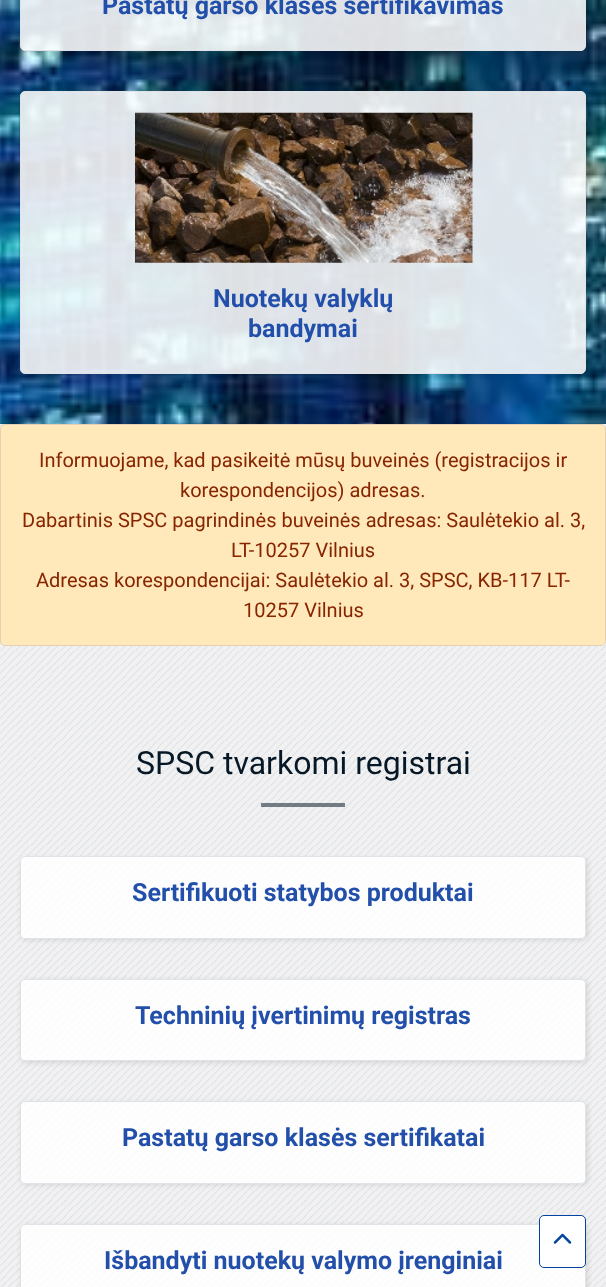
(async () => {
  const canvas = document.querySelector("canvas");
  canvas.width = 606;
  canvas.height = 1287;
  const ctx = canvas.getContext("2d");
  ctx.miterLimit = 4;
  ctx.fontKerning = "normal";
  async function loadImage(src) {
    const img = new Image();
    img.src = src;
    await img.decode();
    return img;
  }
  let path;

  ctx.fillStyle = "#f1f1f1";
  ctx.fillRect(0, 0, 606, 1287);
  ctx.drawImage(await loadImage("img/1.png"), 0, 424, 606, 863);
  ctx.drawImage(await loadImage("img/2.png"), 0, 0, 606, 424);
  ctx.save();
  path = new Path2D("M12 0H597V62H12ZM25-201H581C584-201 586-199 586-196V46C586 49 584 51 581 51H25C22 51 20 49 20 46V-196C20-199 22-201 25-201Z");
  ctx.clip(path, "evenodd");
  ctx.fillStyle = "rgba(0, 0, 0, 0.1)";
  ctx.filter = "blur(2.5px)";
  ctx.beginPath();
  ctx.roundRect(21, -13, 567, 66, 5);
  ctx.fill();
  ctx.filter = "none";
  ctx.restore();
  ctx.fillStyle = "rgba(255, 255, 255, 0.87)";
  ctx.beginPath();
  ctx.roundRect(20.5, -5.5, 565, 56, 4.5);
  ctx.fill();
  ctx.strokeStyle = "#dfe3e7";
  ctx.stroke();
  ctx.save();
  path = new Path2D("M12 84H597V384H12ZM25 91H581C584 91 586 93 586 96V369C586 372 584 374 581 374H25C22 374 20 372 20 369V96C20 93 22 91 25 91Z");
  ctx.clip(path, "evenodd");
  ctx.fillStyle = "rgba(0, 0, 0, 0.1)";
  ctx.filter = "blur(2.5px)";
  ctx.beginPath();
  ctx.roundRect(21, 93, 567, 282, 5);
  ctx.fill();
  ctx.filter = "none";
  ctx.restore();
  ctx.beginPath();
  ctx.roundRect(20.5, 91.5, 565, 282, 4.5);
  ctx.fill();
  ctx.stroke();
  ctx.drawImage(await loadImage("img/3.png"), 135, 112, 338, 151);
  ctx.fillStyle = "#ffe8ba";
  ctx.beginPath();
  ctx.roundRect(0.5, 424.5, 605, 221, 4.5);
  ctx.fill();
  ctx.strokeStyle = "#e6d0b3";
  ctx.stroke();
  ctx.fillStyle = "rgba(6, 23, 38, 0.53)";
  ctx.fillRect(261, 803, 84, 4);
  ctx.save();
  path = new Path2D("M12 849H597V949H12ZM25 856H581C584 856 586 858 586 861V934C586 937 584 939 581 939H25C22 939 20 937 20 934V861C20 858 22 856 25 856Z");
  ctx.clip(path, "evenodd");
  ctx.fillStyle = "rgba(0, 0, 0, 0.1)";
  ctx.filter = "blur(2.5px)";
  ctx.beginPath();
  ctx.roundRect(21, 858, 567, 82, 5);
  ctx.fill();
  ctx.filter = "none";
  ctx.restore();
  ctx.fillStyle = "rgba(255, 255, 255, 0.87)";
  ctx.beginPath();
  ctx.roundRect(20.5, 856.5, 565, 82, 4.5);
  ctx.fill();
  ctx.strokeStyle = "#dfe3e7";
  ctx.stroke();
  ctx.save();
  path = new Path2D("M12 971H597V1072H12ZM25 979H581C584 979 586 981 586 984V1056C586 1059 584 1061 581 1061H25C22 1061 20 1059 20 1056V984C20 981 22 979 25 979Z");
  ctx.clip(path, "evenodd");
  ctx.fillStyle = "rgba(0, 0, 0, 0.1)";
  ctx.filter = "blur(2.5px)";
  ctx.beginPath();
  ctx.roundRect(21, 980, 567, 83, 5);
  ctx.fill();
  ctx.filter = "none";
  ctx.restore();
  ctx.beginPath();
  ctx.roundRect(20.5, 979.5, 565, 81, 4.5);
  ctx.fill();
  ctx.stroke();
  ctx.save();
  path = new Path2D("M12 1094H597V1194H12ZM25 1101H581C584 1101 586 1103 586 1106V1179C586 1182 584 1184 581 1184H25C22 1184 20 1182 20 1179V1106C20 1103 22 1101 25 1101Z");
  ctx.clip(path, "evenodd");
  ctx.fillStyle = "rgba(0, 0, 0, 0.1)";
  ctx.filter = "blur(2.5px)";
  ctx.beginPath();
  ctx.roundRect(21, 1103, 567, 82, 5);
  ctx.fill();
  ctx.filter = "none";
  ctx.restore();
  ctx.beginPath();
  ctx.roundRect(20.5, 1101.5, 565, 82, 4.5);
  ctx.fill();
  ctx.stroke();
  ctx.save();
  path = new Path2D("M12 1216H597V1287H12ZM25 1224H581C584 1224 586 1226 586 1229V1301C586 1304 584 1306 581 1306H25C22 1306 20 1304 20 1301V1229C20 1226 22 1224 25 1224Z");
  ctx.clip(path, "evenodd");
  ctx.fillStyle = "rgba(0, 0, 0, 0.1)";
  ctx.filter = "blur(2.5px)";
  ctx.beginPath();
  ctx.roundRect(21, 1225, 567, 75, 5);
  ctx.fill();
  ctx.filter = "none";
  ctx.restore();
  ctx.beginPath();
  ctx.roundRect(20.5, 1224.5, 565, 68, 4.5);
  ctx.fill();
  ctx.stroke();
  ctx.fillStyle = "#ffffff";
  ctx.beginPath();
  ctx.roundRect(539.5, 1215.5, 46, 52, 4.5);
  ctx.fill();
  ctx.strokeStyle = "#03449e";
  ctx.stroke();
  ctx.drawImage(await loadImage("img/4.png"), 553, 1233, 19, 11);
  ctx.font = "bold 25px Roboto";
  ctx.fillStyle = "#224faa";
  for (const [text, x, y] of [
    ["Pastatų garso klasės sertifikavimas", 102, 14],
    ["Nuotekų valyklų", 213, 307],
    ["bandymai", 248, 337],
  ]) {
    ctx.fillText(text, x, y);
  }
  ctx.font = "20px Roboto";
  ctx.fillStyle = "#872500";
  for (const [text, x, y] of [
    ["Informuojame, kad pasikeitė mūsų buveinės (registracijos ir", 39, 467],
    ["korespondencijos) adresas.", 180, 497],
    ["Dabartinis SPSC pagrindinės buveinės adresas: Saulėtekio al. 3,", 22, 527],
    ["LT-10257 Vilnius", 231, 557],
    ["Adresas korespondencijai: Saulėtekio al. 3, SPSC, KB-117 LT-", 36, 587],
    ["10257 Vilnius", 243, 617],
  ]) {
    ctx.fillText(text, x, y);
  }
  ctx.font = "32px Roboto";
  ctx.fillStyle = "#061726";
  ctx.fillText("SPSC tvarkomi registrai", 136, 774);
  ctx.font = "bold 25px Roboto";
  ctx.fillStyle = "#224faa";
  for (const [text, x, y] of [
    ["Sertifikuoti statybos produktai", 132, 901],
    ["Techninių įvertinimų registras", 135, 1024],
    ["Pastatų garso klasės sertifikatai", 122, 1146],
    ["Išbandyti nuotekų valymo įrenginiai", 104, 1269],
  ]) {
    ctx.fillText(text, x, y);
  }
})();
